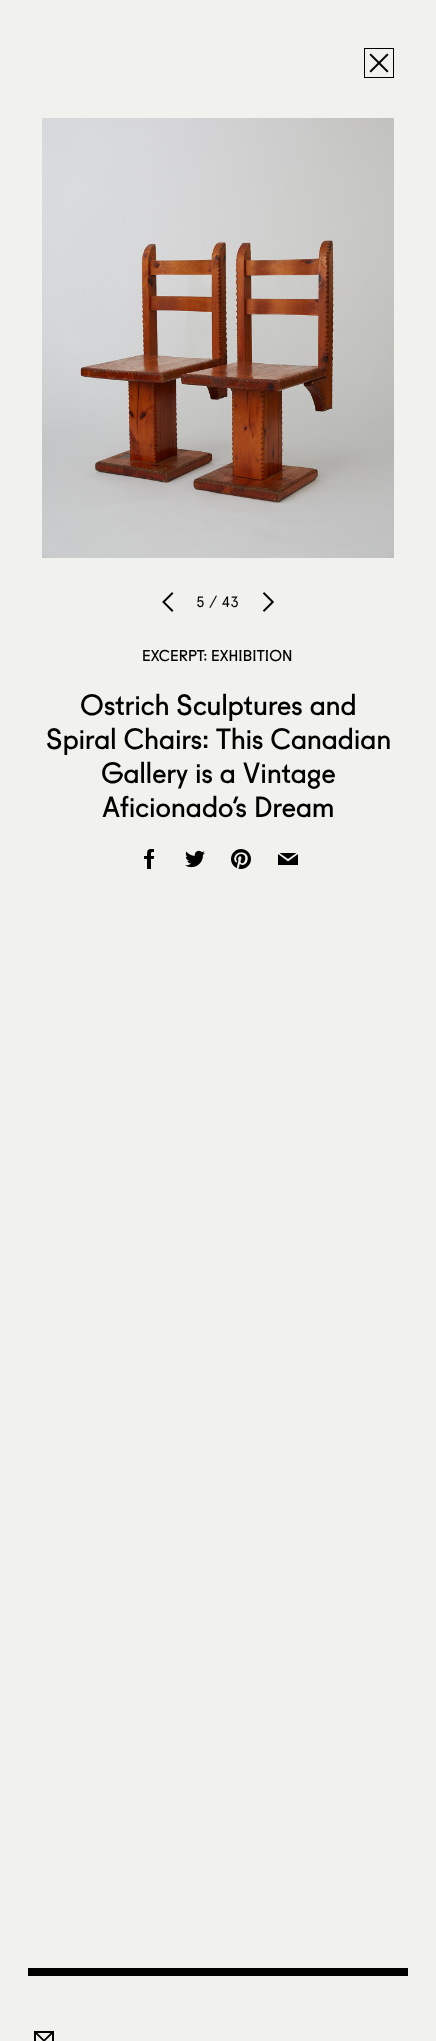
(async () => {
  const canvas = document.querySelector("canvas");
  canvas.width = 436;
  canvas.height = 2041;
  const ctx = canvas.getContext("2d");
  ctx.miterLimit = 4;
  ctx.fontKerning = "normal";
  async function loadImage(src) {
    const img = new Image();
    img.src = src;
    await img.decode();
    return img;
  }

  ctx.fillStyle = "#f1f1ed";
  ctx.fillRect(0, 0, 436, 2041);
  ctx.strokeStyle = "#000000";
  ctx.strokeRect(364.5, 48.5, 29, 29);
  ctx.drawImage(await loadImage("img/1.png"), 369, 53, 20, 20);
  ctx.drawImage(await loadImage("img/2.png"), 42, 118, 352, 440);
  ctx.drawImage(await loadImage("img/3.png"), 162, 592, 12, 20);
  ctx.drawImage(await loadImage("img/4.png"), 262, 592, 12, 20);
  ctx.drawImage(await loadImage("img/5.png"), 144, 849, 11, 20);
  ctx.drawImage(await loadImage("img/6.png"), 185, 850, 20, 18);
  ctx.drawImage(await loadImage("img/7.png"), 231, 849, 20, 20);
  ctx.drawImage(await loadImage("img/8.png"), 278, 853, 20, 12);
  ctx.fillStyle = "#000000";
  ctx.fillRect(28, 1968, 380, 8);
  ctx.drawImage(await loadImage("img/9.png"), 34, 2031, 20, 10);
  ctx.letterSpacing = "0.1px";
  ctx.font = "15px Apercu";
  ctx.fillText("5 / 43", 196, 607);
  ctx.font = "15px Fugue";
  ctx.fillText("EXCERPT: EXHIBITION", 142, 661);
  ctx.letterSpacing = "0.15px";
  ctx.font = "28px Fugue";
  for (const [text, x, y] of [
    ["Ostrich Sculptures and", 80, 715],
    ["Spiral Chairs: This Canadian", 46, 749],
    ["Gallery is a Vintage", 101, 783],
    ["Aficionado’s Dream", 102, 817],
  ]) {
    ctx.fillText(text, x, y);
  }
})();
